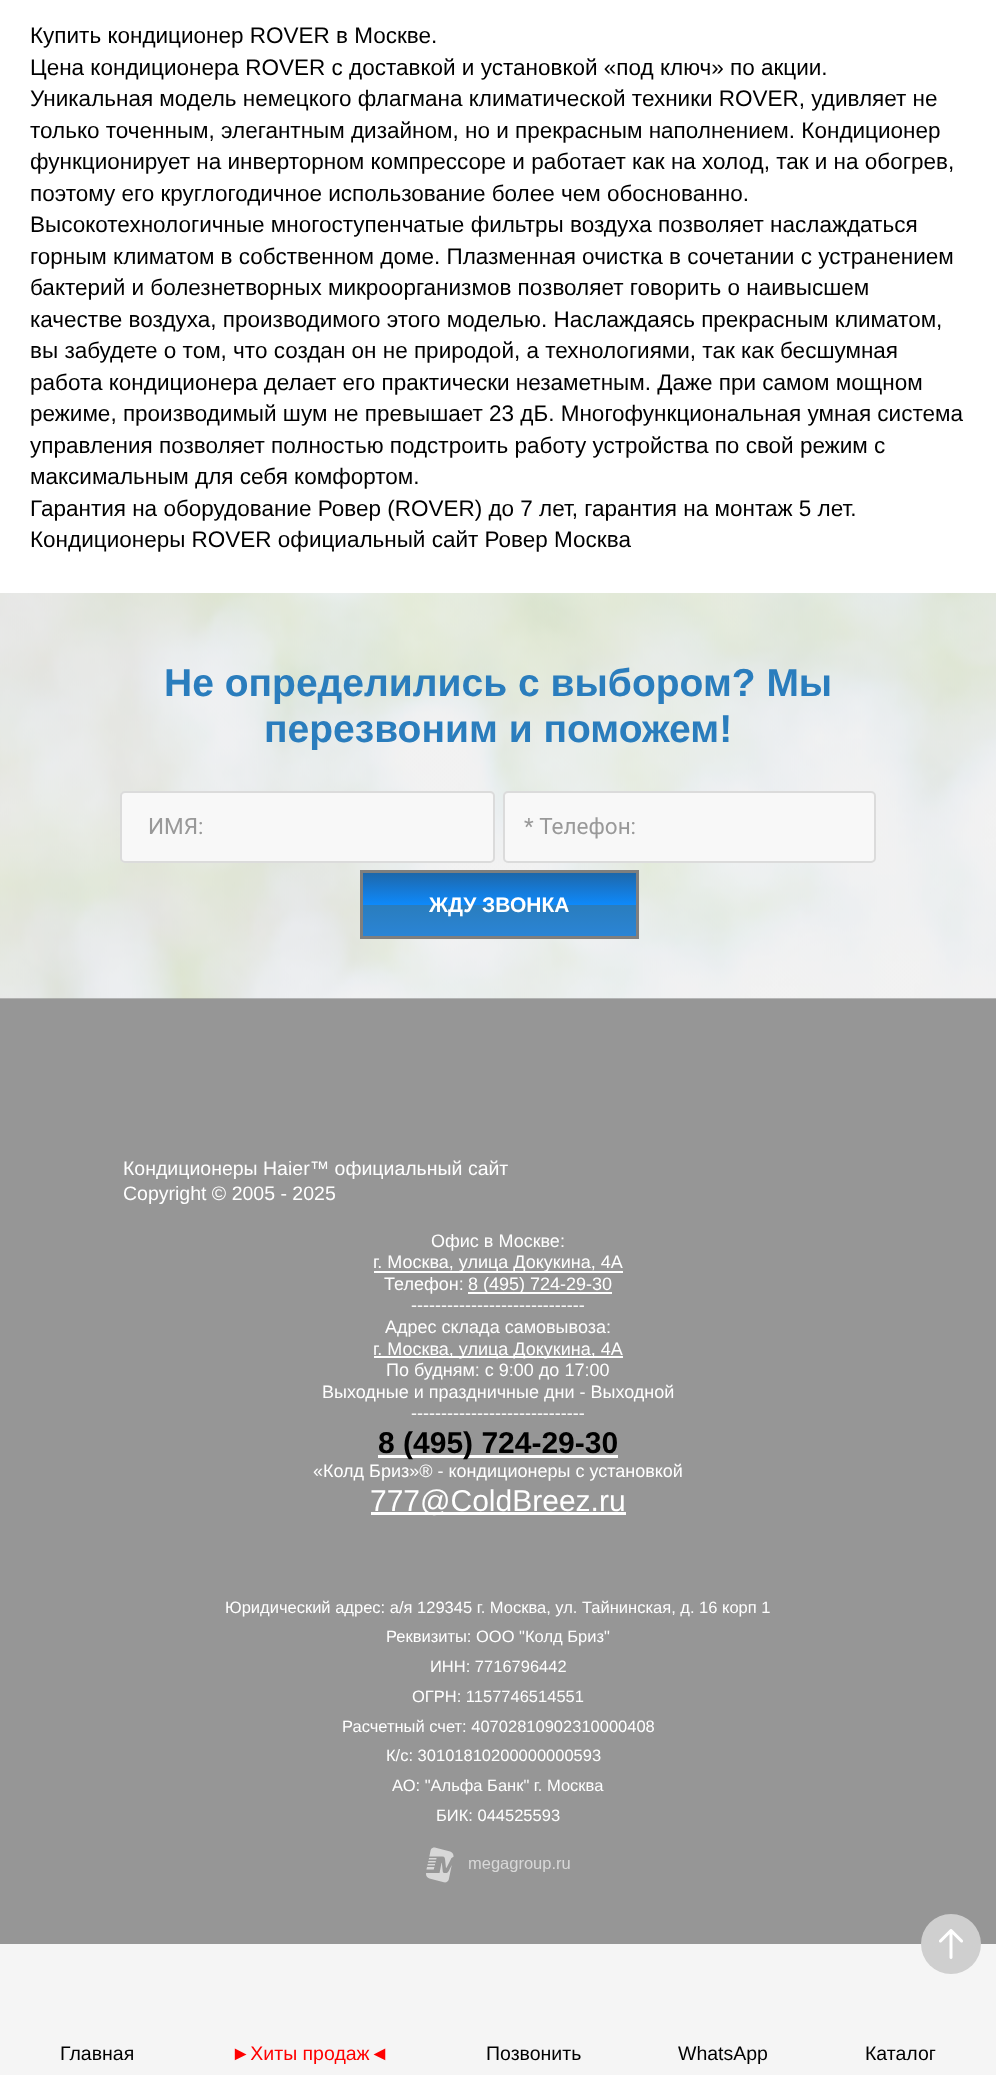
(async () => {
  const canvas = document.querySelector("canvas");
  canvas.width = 996;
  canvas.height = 2075;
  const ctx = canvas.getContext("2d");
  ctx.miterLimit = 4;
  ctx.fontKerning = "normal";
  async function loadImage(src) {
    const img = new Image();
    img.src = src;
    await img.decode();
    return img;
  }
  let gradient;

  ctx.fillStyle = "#7b7b7b";
  ctx.fillRect(0, 0, 996, 2075);
  ctx.fillStyle = "#ffffff";
  ctx.fillRect(0, 0, 996, 593);
  ctx.drawImage(await loadImage("img/1.png"), 0, 593, 996, 406);
  ctx.fillStyle = "#f8f8f8";
  ctx.beginPath();
  ctx.roundRect(120, 791, 375, 72, 5);
  ctx.fill();
  ctx.beginPath();
  ctx.roundRect(121, 792, 373, 70, 4);
  ctx.strokeStyle = "rgba(56, 56, 56, 0.15)";
  ctx.lineWidth = 2;
  ctx.stroke();
  ctx.beginPath();
  ctx.roundRect(503, 791, 373, 72, 5);
  ctx.fill();
  ctx.beginPath();
  ctx.roundRect(504, 792, 371, 70, 4);
  ctx.stroke();
  gradient = ctx.createLinearGradient(500, 870, 500, 939);
  gradient.addColorStop(0, "#2064a2");
  gradient.addColorStop(0.5, "#0e89fa");
  gradient.addColorStop(0.5, "#2a7dbd");
  gradient.addColorStop(1, "#2a85d8");
  ctx.fillStyle = gradient;
  ctx.fillRect(363, 873, 273, 63);
  ctx.strokeStyle = "#7f7f7f";
  ctx.lineWidth = 3;
  ctx.strokeRect(361.5, 871.5, 276, 66);
  for (const [x, y, w, h, color] of [
    [0, 999, 996, 945, "#969696"],
    [374, 1271, 249, 2, "#ffffff"],
    [468, 1292, 144, 2, "#ffffff"],
    [374, 1356, 249, 2, "#ffffff"],
    [378, 1455, 240, 3, "#ffffff"],
    [371, 1512, 255, 3, "#ffffff"],
  ]) {
    ctx.fillStyle = color;
    ctx.fillRect(x, y, w, h);
  }
  ctx.drawImage(await loadImage("img/2.png"), 426, 1847, 144, 36);
  ctx.fillStyle = "#f5f5f5";
  ctx.fillRect(0, 1944, 996, 131);
  ctx.fillStyle = "#cfcfcf";
  ctx.beginPath();
  ctx.arc(951, 1944, 30, 0, Math.PI * 2);
  ctx.fill();
  ctx.drawImage(await loadImage("img/3.png"), 939, 1929, 24, 30);
  ctx.font = "22.5px Liberation Sans";
  ctx.fillStyle = "#000000";
  for (const [text, x, y] of [
    ["Купить кондиционер ROVER в Москве.", 30, 43],
    ["Цена кондиционера ROVER с доставкой и установкой «под ключ» по акции.", 30, 75],
    ["Уникальная модель немецкого флагмана климатической техники ROVER, удивляет не", 30, 106],
    ["только точенным, элегантным дизайном, но и прекрасным наполнением. Кондиционер", 30, 138],
    ["функционирует на инверторном компрессоре и работает как на холод, так и на обогрев,", 30, 169],
    ["поэтому его круглогодичное использование более чем обоснованно.", 30, 201],
    ["Высокотехнологичные многоступенчатые фильтры воздуха позволяет наслаждаться", 30, 232],
    ["горным климатом в собственном доме. Плазменная очистка в сочетании с устранением", 30, 264],
    ["бактерий и болезнетворных микроорганизмов позволяет говорить о наивысшем", 30, 295],
    ["качестве воздуха, производимого этого моделью. Наслаждаясь прекрасным климатом,", 30, 327],
    ["вы забудете о том, что создан он не природой, а технологиями, так как бесшумная", 30, 358],
    ["работа кондиционера делает его практически незаметным. Даже при самом мощном", 30, 390],
    ["режиме, производимый шум не превышает 23 дБ. Многофункциональная умная система", 30, 421],
    ["управления позволяет полностью подстроить работу устройства по свой режим с", 30, 453],
    ["максимальным для себя комфортом.", 30, 484],
    ["Гарантия на оборудование Ровер (ROVER) до 7 лет, гарантия на монтаж 5 лет.", 30, 516],
    ["Кондиционеры ROVER официальный сайт Ровер Москва", 30, 547],
  ]) {
    ctx.fillText(text, x, y);
  }
  ctx.font = "bold 39px Liberation Sans";
  ctx.fillStyle = "#2a7dbd";
  ctx.fillText("Не определились с выбором? Мы", 164, 696);
  ctx.fillText("перезвоним и поможем!", 264, 742);
  ctx.font = "22.5px Roboto";
  ctx.fillStyle = "#999999";
  ctx.fillText("ИМЯ:", 148, 834);
  ctx.fillText("* Телефон:", 524, 834);
  ctx.font = "bold 21px Liberation Sans";
  ctx.fillStyle = "#ffffff";
  ctx.fillText("ЖДУ ЗВОНКА", 429, 912);
  ctx.font = "19.5px Liberation Sans";
  ctx.fillText("Кондиционеры Haier™ официальный сайт", 123, 1175);
  ctx.fillText("Copyright © 2005 - 2025", 123, 1200);
  ctx.font = "18px Liberation Sans";
  for (const [text, x, y] of [
    ["Офис в Москве:", 431, 1247],
    ["г. Москва, улица Докукина, 4А", 373, 1268],
    ["Телефон:", 384, 1290],
    ["8 (495) 724-29-30", 468, 1290],
    ["-----------------------------", 411, 1311],
    ["Адрес склада самовывоза:", 385, 1333],
    ["г. Москва, улица Докукина, 4А", 373, 1355],
    ["По будням: с 9:00 до 17:00", 386, 1376],
    ["Выходные и праздничные дни - Выходной", 322, 1398],
    ["-----------------------------", 411, 1419],
  ]) {
    ctx.fillText(text, x, y);
  }
  ctx.font = "bold 30px Liberation Sans";
  ctx.fillStyle = "#000000";
  ctx.fillText("8 (495) 724-29-30", 378, 1453);
  ctx.font = "18px Liberation Sans";
  ctx.fillStyle = "#ffffff";
  ctx.fillText("«Колд Бриз»® - кондиционеры с установкой", 313, 1477);
  ctx.font = "30px Liberation Sans";
  ctx.fillText("777@ColdBreez.ru", 370, 1511);
  ctx.font = "16.5px Liberation Sans";
  for (const [text, x, y] of [
    ["Юридический адрес: а/я 129345 г. Москва, ул. Тайнинская, д. 16 корп 1", 225, 1613],
    ["Реквизиты: ООО \"Колд Бриз\"", 386, 1642],
    ["ИНН: 7716796442", 430, 1672],
    ["ОГРН: 1157746514551", 412, 1702],
    ["Расчетный счет: 40702810902310000408", 342, 1732],
    ["К/с: 30101810200000000593", 386, 1761],
    ["АО: \"Альфа Банк\" г. Москва", 392, 1791],
    ["БИК: 044525593", 436, 1821],
  ]) {
    ctx.fillText(text, x, y);
  }
  ctx.font = "19.5px Liberation Sans";
  ctx.fillStyle = "#000000";
  ctx.fillText("Главная", 60, 2060);
  ctx.fillStyle = "#ff0000";
  ctx.fillText("►Хиты продаж◄", 231, 2060);
  ctx.fillStyle = "#000000";
  for (const [text, x, y] of [
    ["Позвонить", 486, 2060],
    ["WhatsApp", 678, 2060],
    ["Каталог", 865, 2060],
  ]) {
    ctx.fillText(text, x, y);
  }
})();
